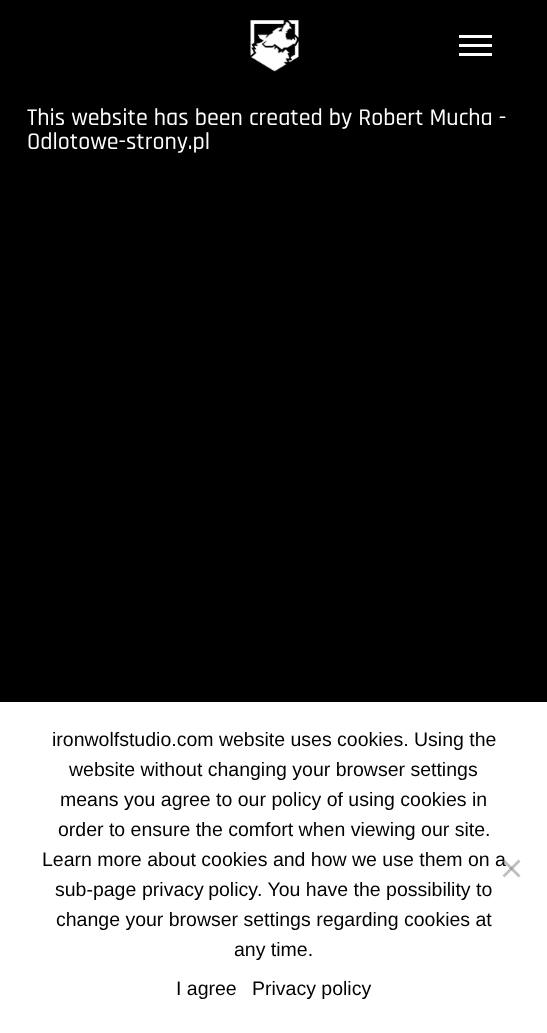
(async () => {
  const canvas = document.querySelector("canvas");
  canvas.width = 547;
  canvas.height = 1033;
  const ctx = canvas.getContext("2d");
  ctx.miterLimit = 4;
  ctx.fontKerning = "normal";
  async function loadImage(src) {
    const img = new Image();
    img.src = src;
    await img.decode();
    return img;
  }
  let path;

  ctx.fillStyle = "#000000";
  ctx.fillRect(0, 0, 547, 1033);
  ctx.drawImage(await loadImage("img/1.png"), 250, 20, 49, 52);
  for (const [x, y, w, h, color] of [
    [459, 35, 33, 3, "#ffffff"],
    [459, 44, 33, 3, "#ffffff"],
    [459, 53, 33, 3, "#ffffff"],
    [0, 702, 547, 331, "#ffffff"],
  ]) {
    ctx.fillStyle = color;
    ctx.fillRect(x, y, w, h);
  }
  ctx.font = "500 24px Rajdhani";
  ctx.fillText("This website has been created by Robert Mucha -", 27, 125);
  ctx.fillText("Odlotowe-strony.pl", 27, 149);
  ctx.font = "19.5px Liberation Sans";
  ctx.fillStyle = "#000000";
  for (const [text, x, y] of [
    ["ironwolfstudio.com website uses cookies. Using the", 52, 746],
    ["website without changing your browser settings", 69, 776],
    ["means you agree to our policy of using cookies in", 60, 806],
    ["order to ensure the comfort when viewing our site.", 58, 836],
    ["Learn more about cookies and how we use them on a", 42, 866],
    ["sub-page", 55, 896],
  ]) {
    ctx.fillText(text, x, y);
  }
  ctx.wordSpacing = "-1px";
  ctx.fillText("privacy policy", 142, 896);
  ctx.wordSpacing = "0px";
  for (const [text, x, y] of [
    [". You have the possibility to", 257, 896],
    ["change your browser settings regarding cookies at", 56, 926],
    ["any time.", 234, 956],
  ]) {
    ctx.fillText(text, x, y);
  }
  ctx.fillStyle = "#c0c0c0";
  path = new Path2D("M518.5 859.5L520.5 861.5L504.5 877.5L502.5 875.5Z");
  ctx.fill(path);
  ctx.fillStyle = "rgba(128, 128, 128, 0.5)";
  path = new Path2D("M502.5 861.5L504.5 859.5L520.5 875.5L518.5 877.5Z");
  ctx.fill(path);
  ctx.fillStyle = "#000000";
  ctx.fillText("I agree", 176, 995);
  ctx.fillText("Privacy policy", 252, 995);
})();
